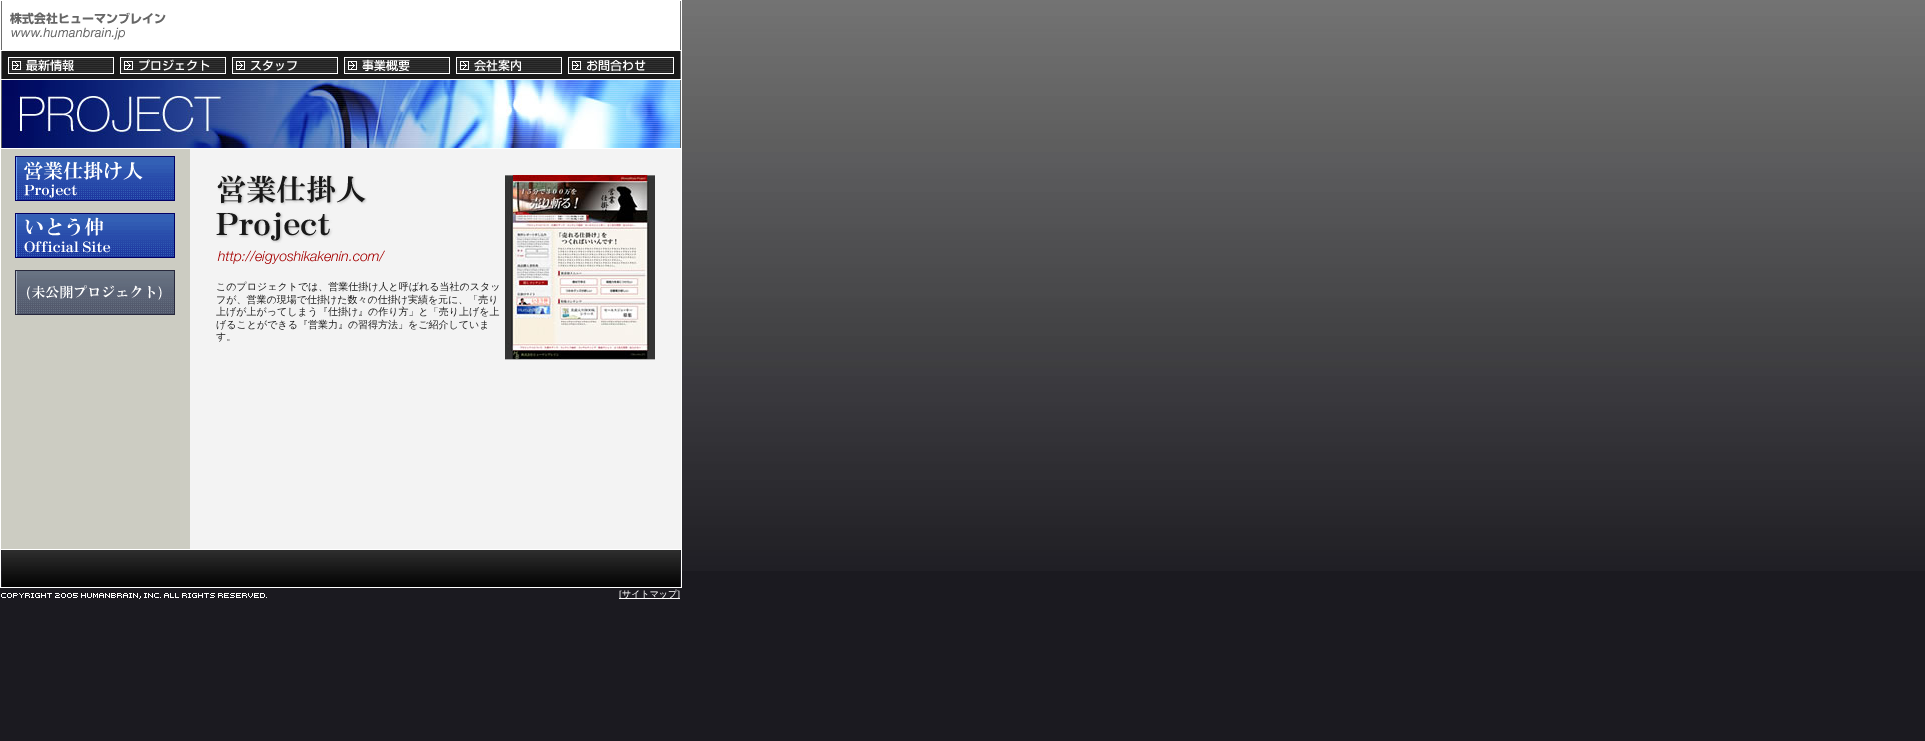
(async () => {
  const canvas = document.querySelector("canvas");
  canvas.width = 1925;
  canvas.height = 741;
  const ctx = canvas.getContext("2d");
  ctx.miterLimit = 4;
  ctx.fontKerning = "normal";
  async function loadImage(src) {
    const img = new Image();
    img.src = src;
    await img.decode();
    return img;
  }

  ctx.fillStyle = "#1b1a20";
  ctx.fillRect(0, 0, 1925, 741);
  ctx.drawImage(await loadImage("img/1.png"), 1, 0, 1924, 571);
  for (const [x, y, w, h, color] of [
    [0, 0, 682, 1, "#ffffff"],
    [681, 0, 1, 50, "#ffffff"],
    [0, 0, 1, 50, "#ffffff"],
  ]) {
    ctx.fillStyle = color;
    ctx.fillRect(x, y, w, h);
  }
  ctx.drawImage(await loadImage("img/2.png"), 2, 1, 678, 49);
  for (const [x, y, w, h, color] of [
    [0, 50, 682, 1, "#ffffff"],
    [681, 50, 1, 29, "#ffffff"],
    [0, 50, 1, 29, "#ffffff"],
  ]) {
    ctx.fillStyle = color;
    ctx.fillRect(x, y, w, h);
  }
  ctx.drawImage(await loadImage("img/3.png"), 2, 51, 112, 28);
  ctx.drawImage(await loadImage("img/4.png"), 114, 51, 112, 28);
  ctx.drawImage(await loadImage("img/5.png"), 226, 51, 112, 28);
  ctx.drawImage(await loadImage("img/6.png"), 338, 51, 112, 28);
  ctx.drawImage(await loadImage("img/7.png"), 450, 51, 112, 28);
  ctx.drawImage(await loadImage("img/8.png"), 562, 51, 118, 28);
  for (const [x, y, w, h, color] of [
    [0, 79, 682, 1, "#ffffff"],
    [681, 79, 1, 69, "#ffffff"],
    [0, 79, 1, 69, "#ffffff"],
  ]) {
    ctx.fillStyle = color;
    ctx.fillRect(x, y, w, h);
  }
  ctx.drawImage(await loadImage("img/9.png"), 2, 80, 678, 68);
  ctx.strokeStyle = "#ffffff";
  ctx.strokeRect(0.5, 148.5, 681, 401);
  ctx.fillStyle = "#ccccc2";
  ctx.fillRect(1, 149, 189, 400);
  ctx.drawImage(await loadImage("img/10.png"), 15, 156, 160, 45);
  ctx.drawImage(await loadImage("img/11.png"), 15, 213, 160, 45);
  ctx.drawImage(await loadImage("img/12.png"), 15, 270, 160, 45);
  ctx.fillStyle = "#f3f3f3";
  ctx.fillRect(190, 149, 491, 400);
  ctx.drawImage(await loadImage("img/13.png"), 216, 175, 169, 89);
  ctx.drawImage(await loadImage("img/14.png"), 505, 175, 150, 185);
  for (const [x, y, w, h, color] of [
    [681, 550, 1, 38, "#ffffff"],
    [0, 587, 682, 1, "#ffffff"],
    [0, 550, 1, 38, "#ffffff"],
  ]) {
    ctx.fillStyle = color;
    ctx.fillRect(x, y, w, h);
  }
  ctx.drawImage(await loadImage("img/15.png"), 2, 550, 678, 37);
  ctx.drawImage(await loadImage("img/16.png"), 1, 593, 266, 6);
  ctx.fillRect(619, 598, 61, 1);
  ctx.font = "500 10px WenQuanYi Zen Hei";
  ctx.fillStyle = "#191919";
  for (const [text, x, y] of [
    ["このプロジェクトでは、営業仕掛け人と呼ばれる当社のスタッ", 216, 290],
    ["フが、営業の現場で仕掛けた数々の仕掛け実績を元に、「売り", 216, 303],
    ["上げが上がってしまう『仕掛け』の作り方」と「売り上げを上", 216, 315],
    ["げることができる『営業力』の習得方法」をご紹介していま", 216, 328],
    ["す。", 216, 340],
  ]) {
    ctx.fillText(text, x, y);
  }
  ctx.font = "9px Liberation Serif";
  ctx.fillStyle = "#ffffff";
  ctx.fillText("[", 619, 597);
  ctx.font = "500 9px WenQuanYi Zen Hei";
  ctx.fillText("サイトマップ", 622, 597);
  ctx.font = "9px Liberation Serif";
  ctx.fillText("]", 677, 597);
})();
